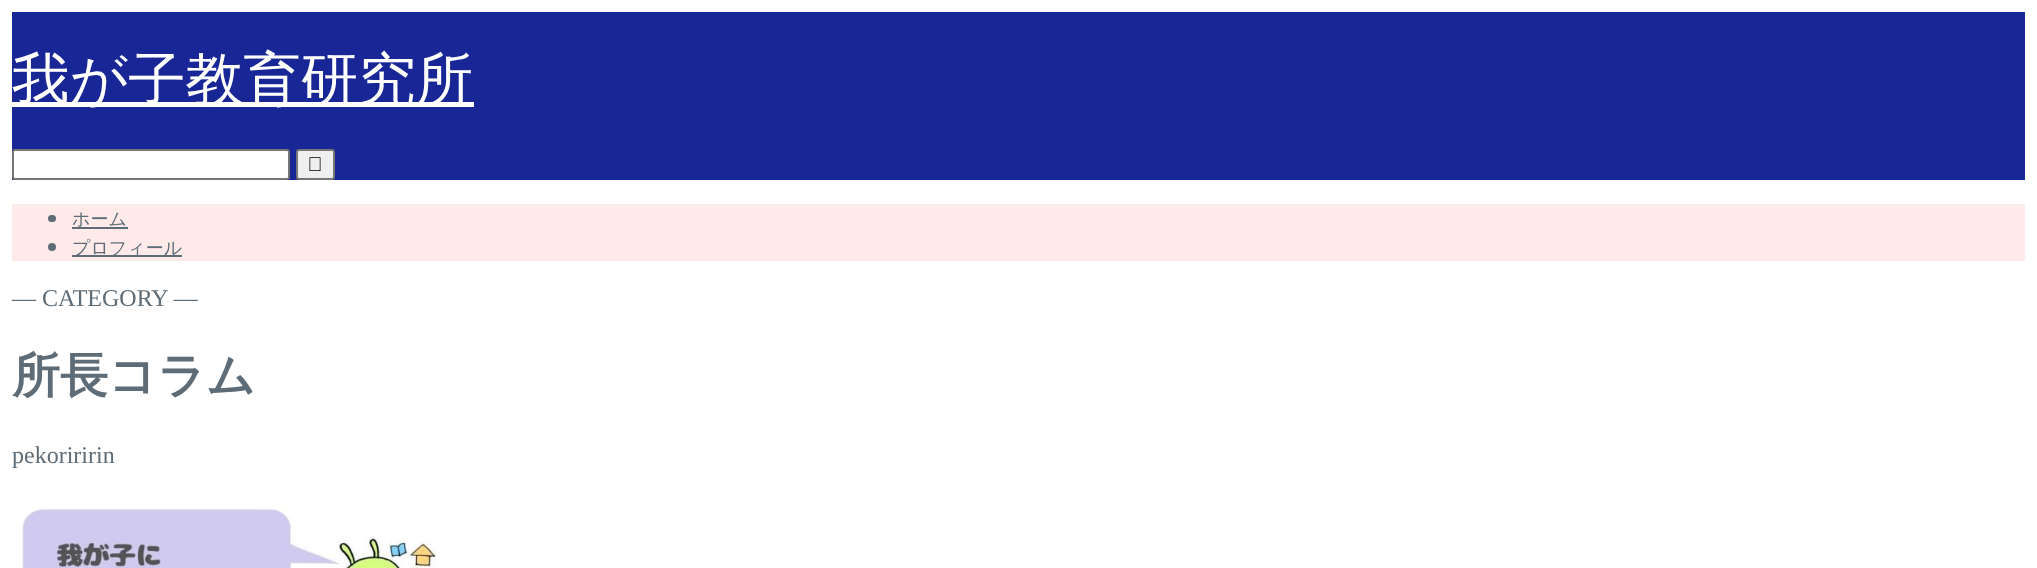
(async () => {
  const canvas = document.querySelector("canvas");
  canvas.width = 2037;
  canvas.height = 568;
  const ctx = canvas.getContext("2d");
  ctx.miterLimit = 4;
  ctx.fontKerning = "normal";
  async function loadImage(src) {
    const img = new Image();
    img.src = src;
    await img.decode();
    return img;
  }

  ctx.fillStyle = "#ffffff";
  ctx.fillRect(0, 0, 2037, 568);
  ctx.fillStyle = "#182696";
  ctx.fillRect(12, 12, 2013, 168);
  ctx.fillStyle = "#ffffff";
  ctx.fillRect(12, 102, 462, 5);
  ctx.beginPath();
  ctx.roundRect(13, 150, 276, 29, 2);
  ctx.fill();
  ctx.strokeStyle = "#767676";
  ctx.lineWidth = 2;
  ctx.stroke();
  ctx.fillStyle = "#efefef";
  ctx.beginPath();
  ctx.roundRect(297, 150, 37, 29, 2);
  ctx.fill();
  ctx.stroke();
  ctx.drawImage(await loadImage("img/1.png"), 309, 157, 12, 14);
  ctx.fillStyle = "#ffeaea";
  ctx.fillRect(12, 204, 2013, 57);
  ctx.fillStyle = "#5e6c77";
  ctx.beginPath();
  ctx.roundRect(48, 215, 8, 7, 3.5);
  ctx.fill();
  ctx.fillRect(72, 227, 56, 2);
  ctx.beginPath();
  ctx.arc(52, 247, 4, 0, Math.PI * 2);
  ctx.fill();
  ctx.fillRect(72, 255, 110, 2);
  ctx.drawImage(await loadImage("img/2.png"), 19, 507, 418, 61);
  ctx.font = "500 57.5px WenQuanYi Zen Hei";
  ctx.fillStyle = "#ffffff";
  ctx.fillText("我が子教育研究所", 12, 99);
  ctx.font = "500 18px WenQuanYi Zen Hei";
  ctx.fillStyle = "#5e6c77";
  ctx.fillText("ホーム", 72, 225);
  ctx.fillText("プロフィール", 72, 254);
  ctx.font = "24px Liberation Serif";
  ctx.fillText("― CATEGORY ―", 12, 306);
  ctx.font = "bold 48px WenQuanYi Zen Hei";
  ctx.fillText("所長コラム", 12, 392);
  ctx.font = "24px Liberation Serif";
  ctx.fillText("pekoriririn", 12, 463);
})();
